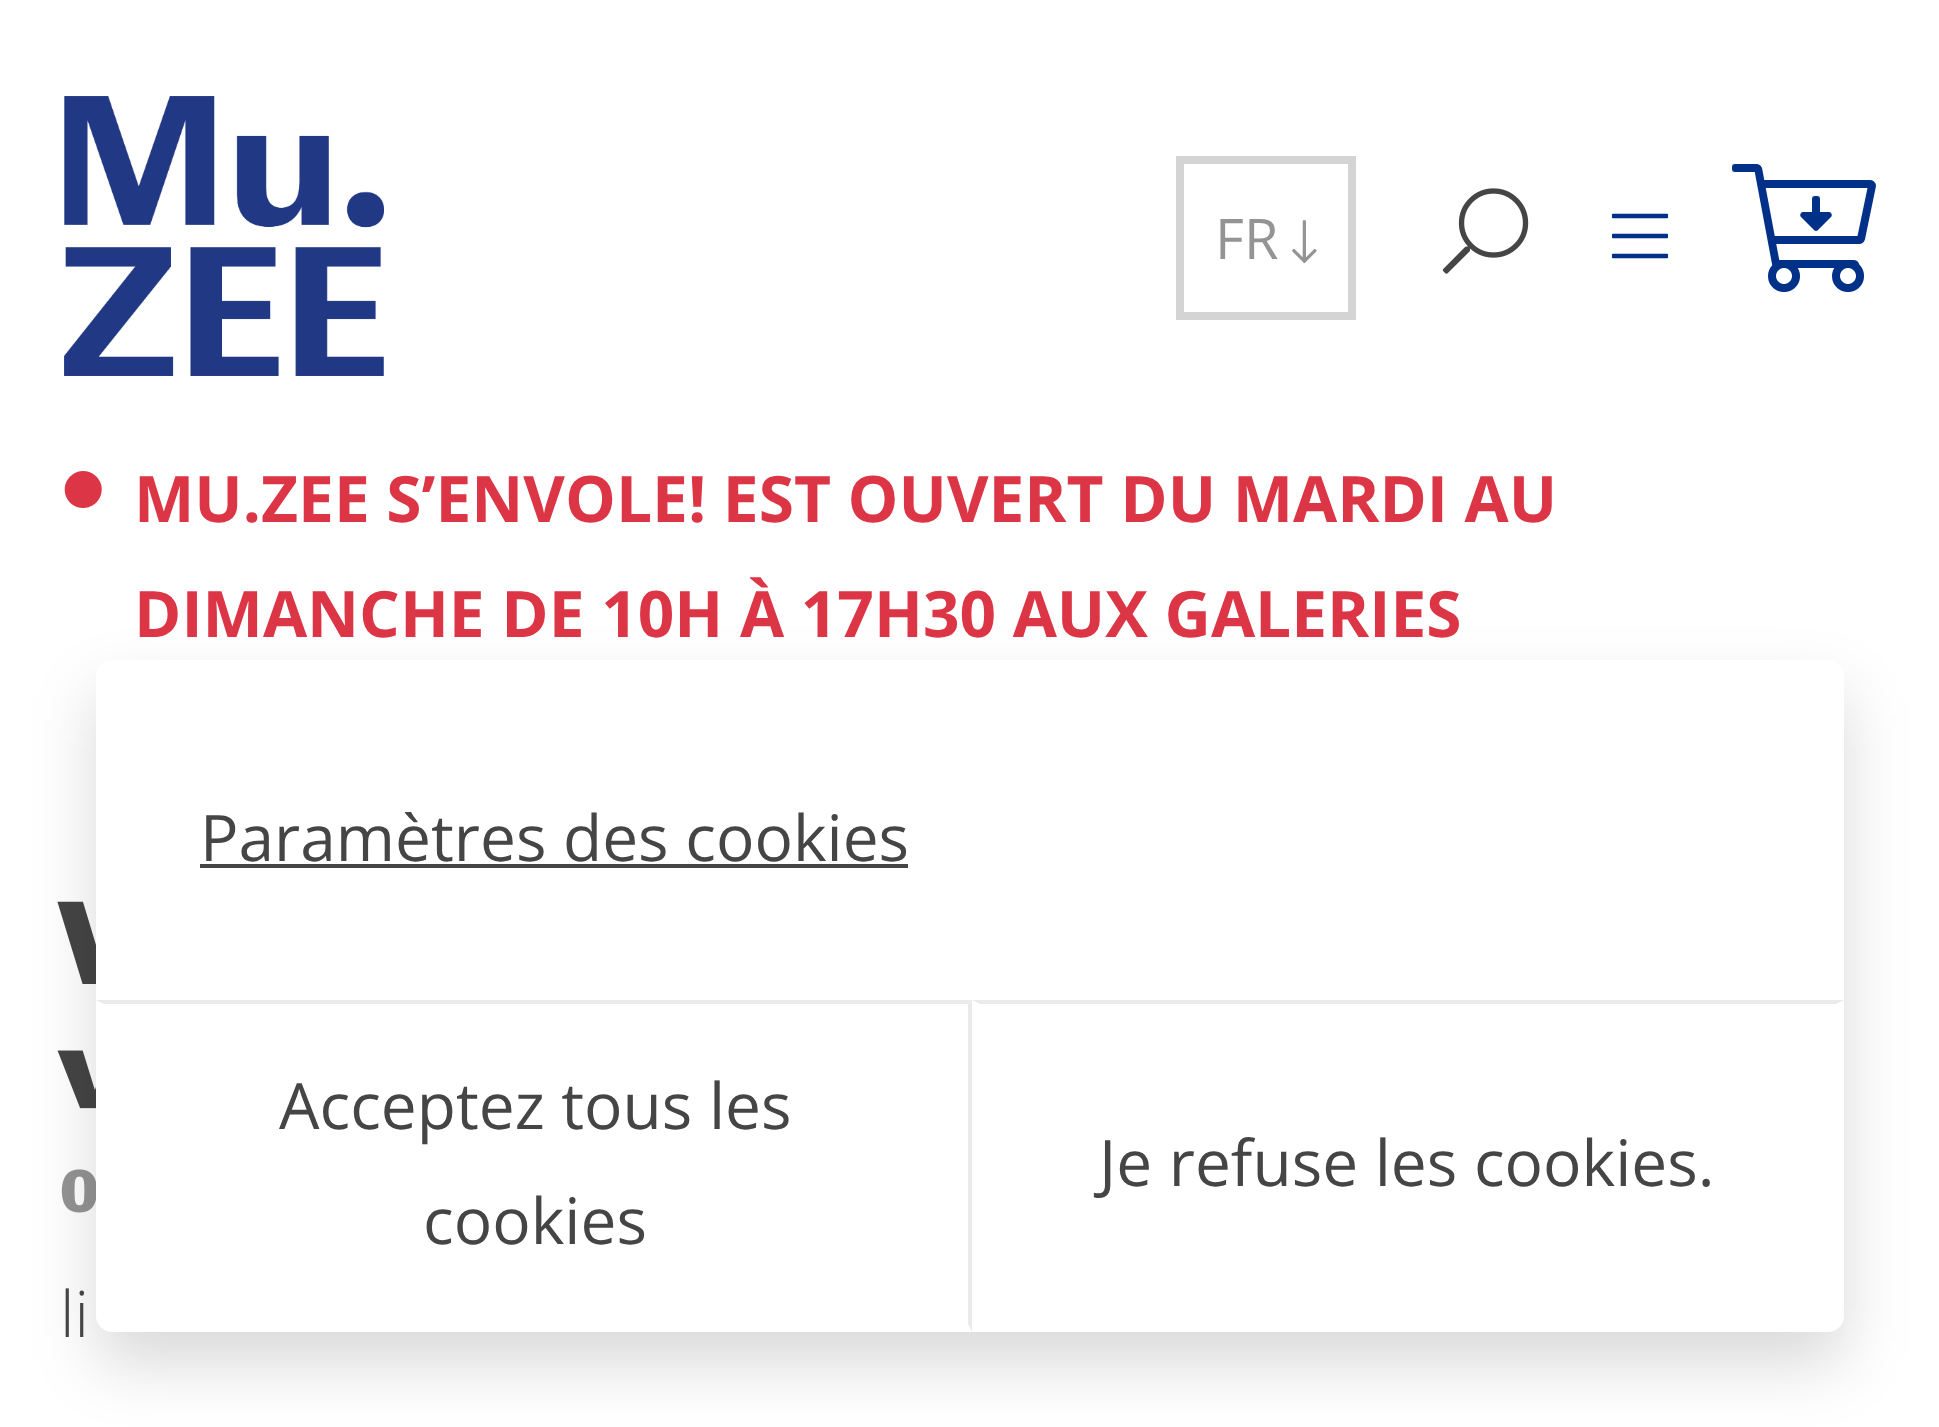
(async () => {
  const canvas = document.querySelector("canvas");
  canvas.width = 1939;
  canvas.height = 1427;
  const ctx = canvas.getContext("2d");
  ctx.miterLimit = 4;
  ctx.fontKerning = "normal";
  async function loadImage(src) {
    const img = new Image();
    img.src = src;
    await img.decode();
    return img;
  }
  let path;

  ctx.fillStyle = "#ffffff";
  ctx.fillRect(0, 0, 1939, 1427);
  ctx.drawImage(await loadImage("img/1.png"), 64, 96, 320, 280);
  ctx.strokeStyle = "#d4d4d4";
  ctx.lineWidth = 8;
  ctx.strokeRect(1180, 160, 172, 156);
  ctx.drawImage(await loadImage("img/2.png"), 1292, 220, 25, 44);
  ctx.drawImage(await loadImage("img/3.png"), 1442, 188, 87, 86);
  ctx.drawImage(await loadImage("img/4.png"), 1612, 213, 56, 46);
  ctx.drawImage(await loadImage("img/5.png"), 1732, 164, 144, 128);
  ctx.fillStyle = "#dc3545";
  path = new Path2D("M83 471C79 471 75 472.5 72 475C58 485.5 65.5 508 83 508C101 508 108.5 485.5 94.5 475C91.5 472.5 87.5 471 83 471Z");
  ctx.fill(path);
  ctx.drawImage(await loadImage("img/6.png"), 57, 901, 39, 83);
  ctx.drawImage(await loadImage("img/7.png"), 57, 1050, 39, 59);
  ctx.drawImage(await loadImage("img/8.png"), 61, 1169, 35, 44);
  ctx.fillStyle = "rgba(0, 0, 0, 0.15)";
  ctx.filter = "blur(32px)";
  ctx.beginPath();
  ctx.roundRect(96, 692, 1748, 672, 16);
  ctx.fill();
  ctx.filter = "none";
  ctx.fillStyle = "#ffffff";
  ctx.beginPath();
  ctx.roundRect(96, 660, 1748, 672, 16);
  ctx.fill();
  ctx.fillStyle = "#454545";
  ctx.fillRect(200, 864, 708, 4);
  ctx.fillStyle = "#eaeaea";
  path = new Path2D("M96 1000L104 1004H968L972 1000Z");
  ctx.fill(path);
  path = new Path2D("M972 1000L968 1004V1324L972 1332Z");
  ctx.fill(path);
  path = new Path2D("M972 1000L980 1004H1836L1844 1000Z");
  ctx.fill(path);
  ctx.font = "56px Open Sans";
  ctx.fillStyle = "#949494";
  ctx.fillText("FR", 1215, 259);
  ctx.font = "bold 64px Open Sans";
  ctx.fillStyle = "#dc3545";
  ctx.fillText("MU.ZEE S’ENVOLE! EST OUVERT DU MARDI AU", 134, 522);
  ctx.fillText("DIMANCHE DE 10H À 17H30 AUX GALERIES", 134, 637);
  ctx.font = "64px Open Sans";
  ctx.fillStyle = "#454545";
  for (const [text, x, y] of [
    ["Paramètres des cookies", 200, 861],
    ["Acceptez tous les", 279, 1129],
    ["cookies", 423, 1244],
    ["Je refuse les cookies.", 1099, 1186],
  ]) {
    ctx.fillText(text, x, y);
  }
  ctx.font = "300 64px Open Sans";
  ctx.fillText("li", 60, 1337);
})();
